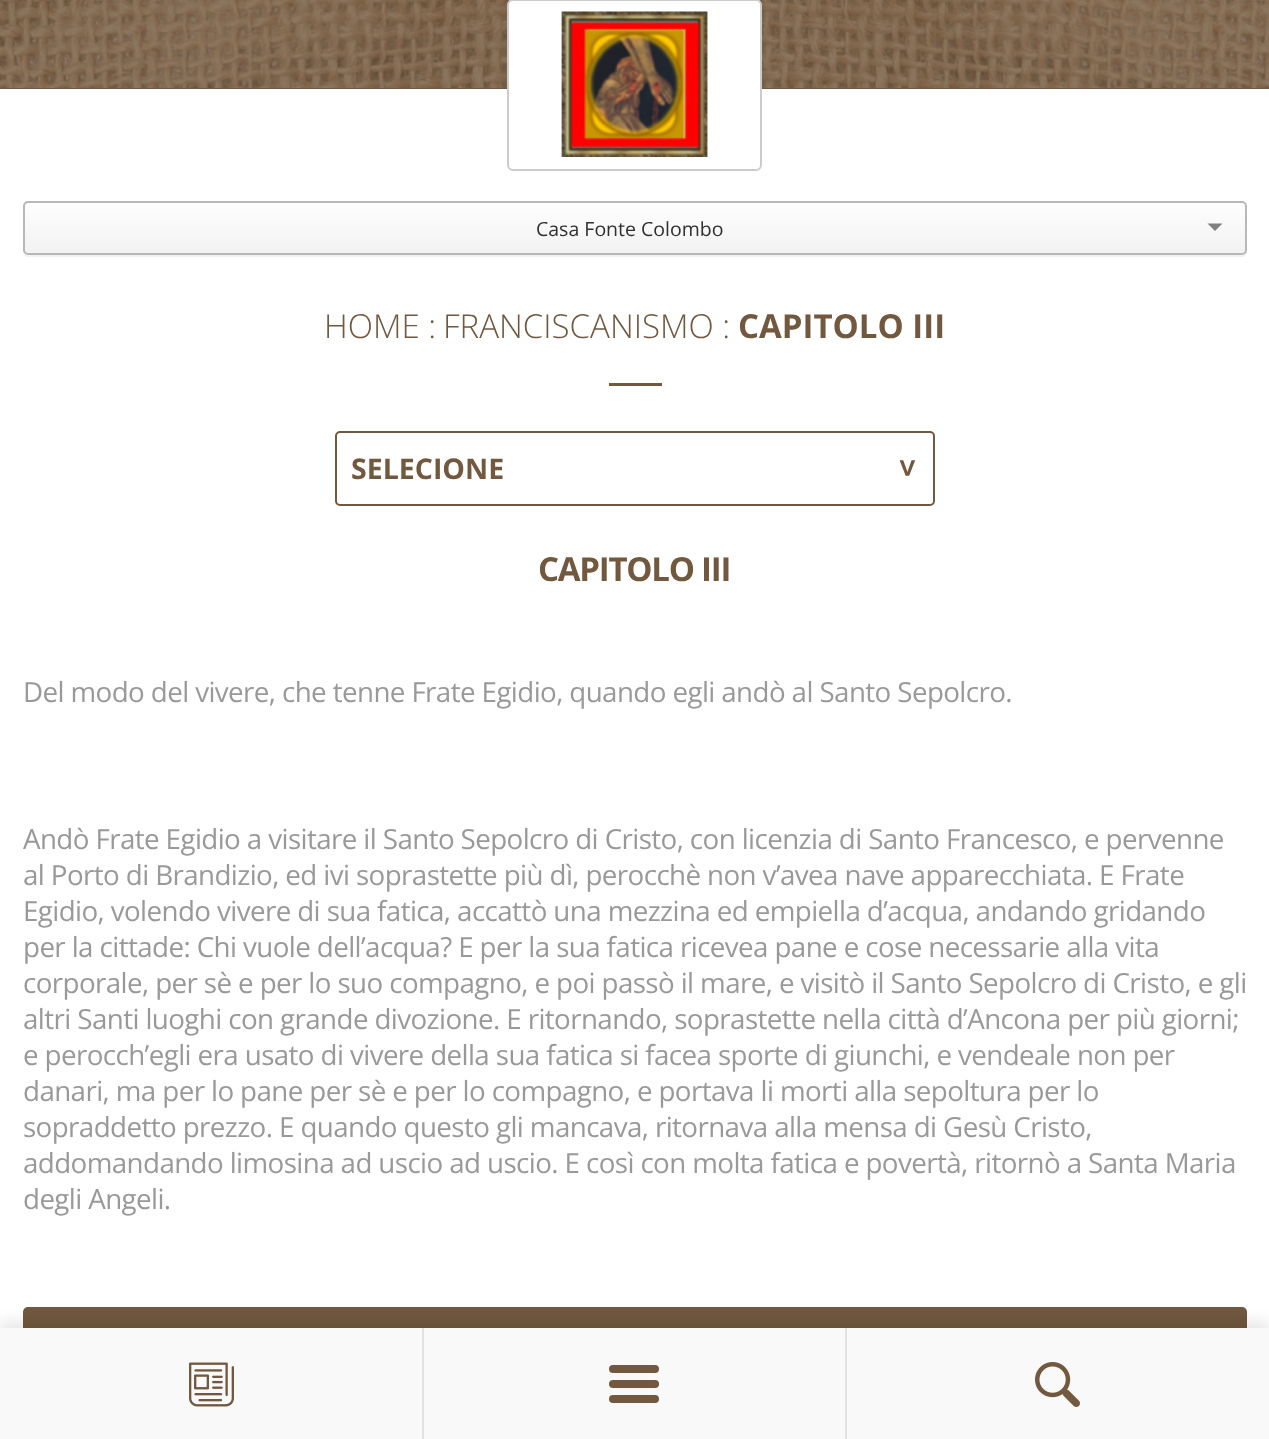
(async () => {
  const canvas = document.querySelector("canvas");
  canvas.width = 1269;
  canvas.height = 1439;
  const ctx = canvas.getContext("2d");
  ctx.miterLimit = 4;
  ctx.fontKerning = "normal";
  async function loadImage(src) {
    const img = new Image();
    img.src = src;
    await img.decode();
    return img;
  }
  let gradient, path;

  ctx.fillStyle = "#ffffff";
  ctx.fillRect(0, 0, 1269, 1439);
  ctx.fillStyle = "#71583f";
  ctx.fillRect(0, 0, 1269, 89);
  ctx.drawImage(await loadImage("img/1.png"), 0, 0, 1269, 88);
  ctx.fillStyle = "#ffffff";
  ctx.beginPath();
  ctx.roundRect(508, 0, 253, 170, 5);
  ctx.fill();
  ctx.strokeStyle = "#cccccc";
  ctx.lineWidth = 2;
  ctx.stroke();
  ctx.drawImage(await loadImage("img/2.png"), 561, 11, 147, 146);
  ctx.fillStyle = "#f2f2f2";
  path = new Path2D("M23 253C23 255 25 257 28 257H1242C1245 257 1247 255 1247 252V208L1246 206V250C1246 253 1244 255 1242 255H27C25 255 24 254 23 253Z");
  ctx.fill(path);
  ctx.save();
  ctx.beginPath();
  ctx.roundRect(23, 201, 1224, 54, 5);
  ctx.clip();
  gradient = ctx.createLinearGradient(635, 202, 635, 254);
  gradient.addColorStop(0, "#fefefe");
  gradient.addColorStop(1, "#f2f2f2");
  ctx.fillStyle = gradient;
  ctx.fillRect(23, 203, 1224, 51);
  ctx.restore();
  ctx.beginPath();
  ctx.roundRect(24, 202, 1222, 52, 4);
  ctx.strokeStyle = "#b8b8b8";
  ctx.stroke();
  ctx.fillStyle = "#808080";
  path = new Path2D("M1207.5 223.5H1222.5L1215 231Z");
  ctx.fill(path);
  ctx.fillStyle = "#71583f";
  ctx.fillRect(609, 383, 53, 3);
  ctx.beginPath();
  ctx.roundRect(336, 432, 598, 73, 4);
  ctx.strokeStyle = "#71583f";
  ctx.stroke();
  ctx.beginPath();
  ctx.roundRect(23, 1307, 1224, 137, 5);
  ctx.fill();
  ctx.fillStyle = "rgba(0, 0, 0, 0.1)";
  ctx.filter = "blur(7.5px)";
  ctx.beginPath();
  ctx.rect(0, 1322, 1269, 112);
  ctx.fill();
  ctx.filter = "none";
  ctx.fillStyle = "#f9f9f9";
  ctx.fillRect(0, 1328, 1269, 111);
  ctx.fillStyle = "#e2e2e2";
  ctx.fillRect(422, 1328, 2, 111);
  ctx.drawImage(await loadImage("img/3.png"), 189, 1362, 45, 45);
  ctx.fillRect(845, 1328, 2, 111);
  ctx.fillStyle = "#71583f";
  ctx.beginPath();
  ctx.roundRect(609, 1380, 50, 8, 4);
  ctx.fill();
  ctx.beginPath();
  ctx.roundRect(609, 1365, 50, 8, 4);
  ctx.fill();
  ctx.beginPath();
  ctx.roundRect(609, 1395, 50, 8, 4);
  ctx.fill();
  ctx.drawImage(await loadImage("img/4.png"), 1035, 1362, 45, 45);
  ctx.font = "19.5px Open Sans";
  ctx.fillStyle = "#303030";
  ctx.fillText("Casa Fonte Colombo", 536, 236);
  ctx.font = "300 33px Open Sans";
  ctx.fillStyle = "#71583f";
  ctx.fillText("HOME :", 324, 338);
  ctx.fillText("FRANCISCANISMO :", 443, 338);
  ctx.font = "bold 33px Open Sans";
  ctx.fillText("CAPITOLO III", 738, 338);
  ctx.font = "bold 28.5px Open Sans";
  ctx.fillText("SELECIONE", 351, 479);
  ctx.font = "bold 30px DejaVu Sans Mono";
  ctx.save();
  ctx.translate(898, 459);
  ctx.rotate(90 * Math.PI / 180);
  ctx.fillText(">", 0, 0);
  ctx.restore();
  ctx.letterSpacing = "-1.25px";
  ctx.font = "bold 33px Open Sans";
  ctx.fillText("CAPITOLO III", 538, 581);
  ctx.letterSpacing = "-0.6px";
  ctx.font = "27.75px Open Sans";
  ctx.fillStyle = "#999999";
  for (const [text, x, y] of [
    ["Del modo del vivere, che tenne Frate Egidio, quando egli andò al Santo Sepolcro.", 23, 702],
    ["Andò Frate Egidio a visitare il Santo Sepolcro di Cristo, con licenzia di Santo Francesco, e pervenne", 23, 849],
    ["al Porto di Brandizio, ed ivi soprastette più dì, perocchè non v’avea nave apparecchiata. E Frate", 23, 885],
    ["Egidio, volendo vivere di sua fatica, accattò una mezzina ed empiella d’acqua, andando gridando", 23, 921],
    ["per la cittade: Chi vuole dell’acqua? E per la sua fatica ricevea pane e cose necessarie alla vita", 23, 957],
    ["corporale, per sè e per lo suo compagno, e poi passò il mare, e visitò il Santo Sepolcro di Cristo, e gli", 23, 993],
    ["altri Santi luoghi con grande divozione. E ritornando, soprastette nella città d’Ancona per più giorni;", 23, 1029],
    ["e perocch’egli era usato di vivere della sua fatica si facea sporte di giunchi, e vendeale non per", 23, 1065],
    ["danari, ma per lo pane per sè e per lo compagno, e portava li morti alla sepoltura per lo", 23, 1101],
    ["sopraddetto prezzo. E quando questo gli mancava, ritornava alla mensa di Gesù Cristo,", 23, 1137],
    ["addomandando limosina ad uscio ad uscio. E così con molta fatica e povertà, ritornò a Santa Maria", 23, 1173],
    ["degli Angeli.", 23, 1209],
  ]) {
    ctx.fillText(text, x, y);
  }
})();
